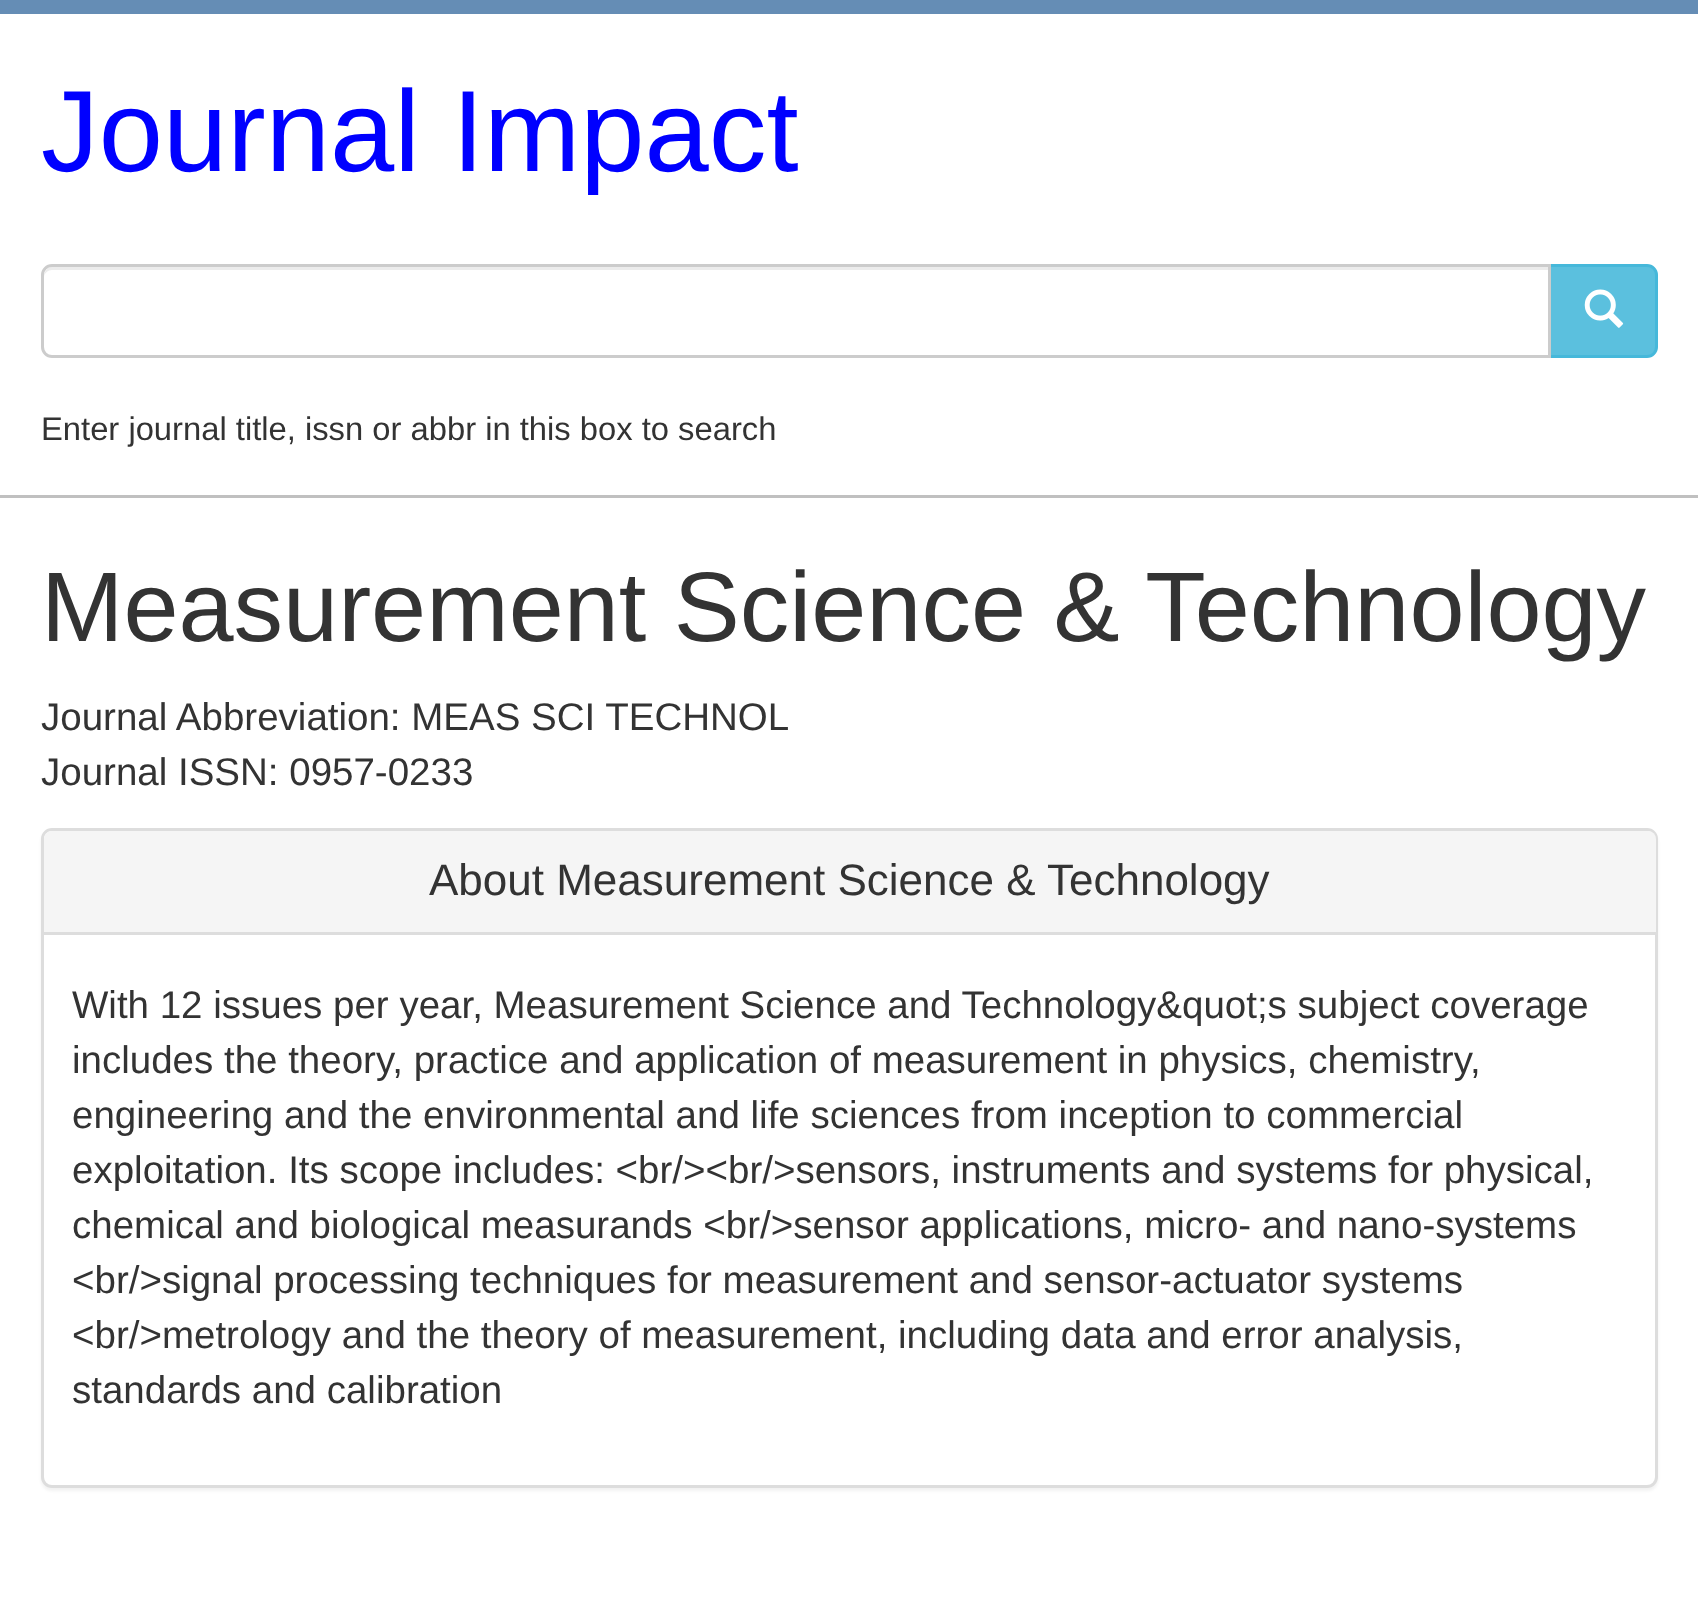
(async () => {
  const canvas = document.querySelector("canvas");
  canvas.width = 1698;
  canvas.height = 1624;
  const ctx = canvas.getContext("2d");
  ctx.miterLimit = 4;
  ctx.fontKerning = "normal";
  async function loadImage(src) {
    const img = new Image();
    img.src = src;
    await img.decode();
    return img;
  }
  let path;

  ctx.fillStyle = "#ffffff";
  ctx.fillRect(0, 0, 1698, 1624);
  ctx.fillStyle = "#658db5";
  ctx.fillRect(0, 0, 1698, 14);
  ctx.fillStyle = "#c0c0c0";
  ctx.fillRect(0, 495, 1698, 3);
  ctx.fillStyle = "#5bc0de";
  ctx.beginPath();
  ctx.roundRect(1549.5, 265.5, 107, 91, [0, 9.5, 9.5, 0]);
  ctx.fill();
  ctx.strokeStyle = "#46b8da";
  ctx.lineWidth = 3;
  ctx.stroke();
  ctx.fillStyle = "#ffffff";
  ctx.beginPath();
  ctx.roundRect(41, 264, 1510, 94, [11, 0, 0, 11]);
  ctx.fill();
  ctx.fillStyle = "#ececec";
  path = new Path2D("M52 270H1548V267H52C46 267 44 273 44 278C44 273 48 270 52 270Z");
  ctx.fill(path);
  ctx.beginPath();
  ctx.roundRect(42.5, 265.5, 1507, 91, [9.5, 0, 0, 9.5]);
  ctx.strokeStyle = "#cccccc";
  ctx.stroke();
  ctx.drawImage(await loadImage("img/1.png"), 1584, 289, 40, 39);
  ctx.fillStyle = "rgba(0, 0, 0, 0.05)";
  ctx.filter = "blur(1.5px)";
  ctx.beginPath();
  ctx.roundRect(41, 831, 1617, 660, 11);
  ctx.fill();
  ctx.filter = "none";
  ctx.fillStyle = "#ffffff";
  ctx.beginPath();
  ctx.roundRect(42.5, 829.5, 1614, 657, 9.5);
  ctx.fill();
  ctx.strokeStyle = "#dddddd";
  ctx.stroke();
  ctx.fillStyle = "#f5f5f5";
  ctx.beginPath();
  ctx.roundRect(44, 831, 1612, 104, [8, 8, 0, 0]);
  ctx.fill();
  ctx.fillStyle = "#dddddd";
  ctx.fillRect(44, 932, 1612, 3);
  ctx.font = "115.5px Liberation Sans";
  ctx.fillStyle = "#0000ff";
  ctx.fillText("Journal Impact", 41, 171);
  ctx.font = "32.75px Liberation Sans";
  ctx.fillStyle = "#333333";
  ctx.fillText("Enter journal title, issn or abbr in this box to search", 41, 440);
  ctx.font = "99px Liberation Sans";
  ctx.fillText("Measurement Science & Technology", 41, 641);
  ctx.font = "38.5px Liberation Sans";
  ctx.fillText("Journal Abbreviation: MEAS SCI TECHNOL", 41, 730);
  ctx.fillText("Journal ISSN: 0957-0233", 41, 785);
  ctx.font = "44px Liberation Sans";
  ctx.fillText("About Measurement Science & Technology", 429, 895);
  ctx.font = "38.5px Liberation Sans";
  for (const [text, x, y] of [
    ["With 12 issues per year, Measurement Science and Technology&quot;s subject coverage", 72, 1018],
    ["includes the theory, practice and application of measurement in physics, chemistry,", 72, 1073],
    ["engineering and the environmental and life sciences from inception to commercial", 72, 1128],
    ["exploitation. Its scope includes: <br/><br/>sensors, instruments and systems for physical,", 72, 1183],
    ["chemical and biological measurands <br/>sensor applications, micro- and nano-systems", 72, 1238],
    ["<br/>signal processing techniques for measurement and sensor-actuator systems", 72, 1293],
    ["<br/>metrology and the theory of measurement, including data and error analysis,", 72, 1348],
    ["standards and calibration", 72, 1403],
  ]) {
    ctx.fillText(text, x, y);
  }
})();
